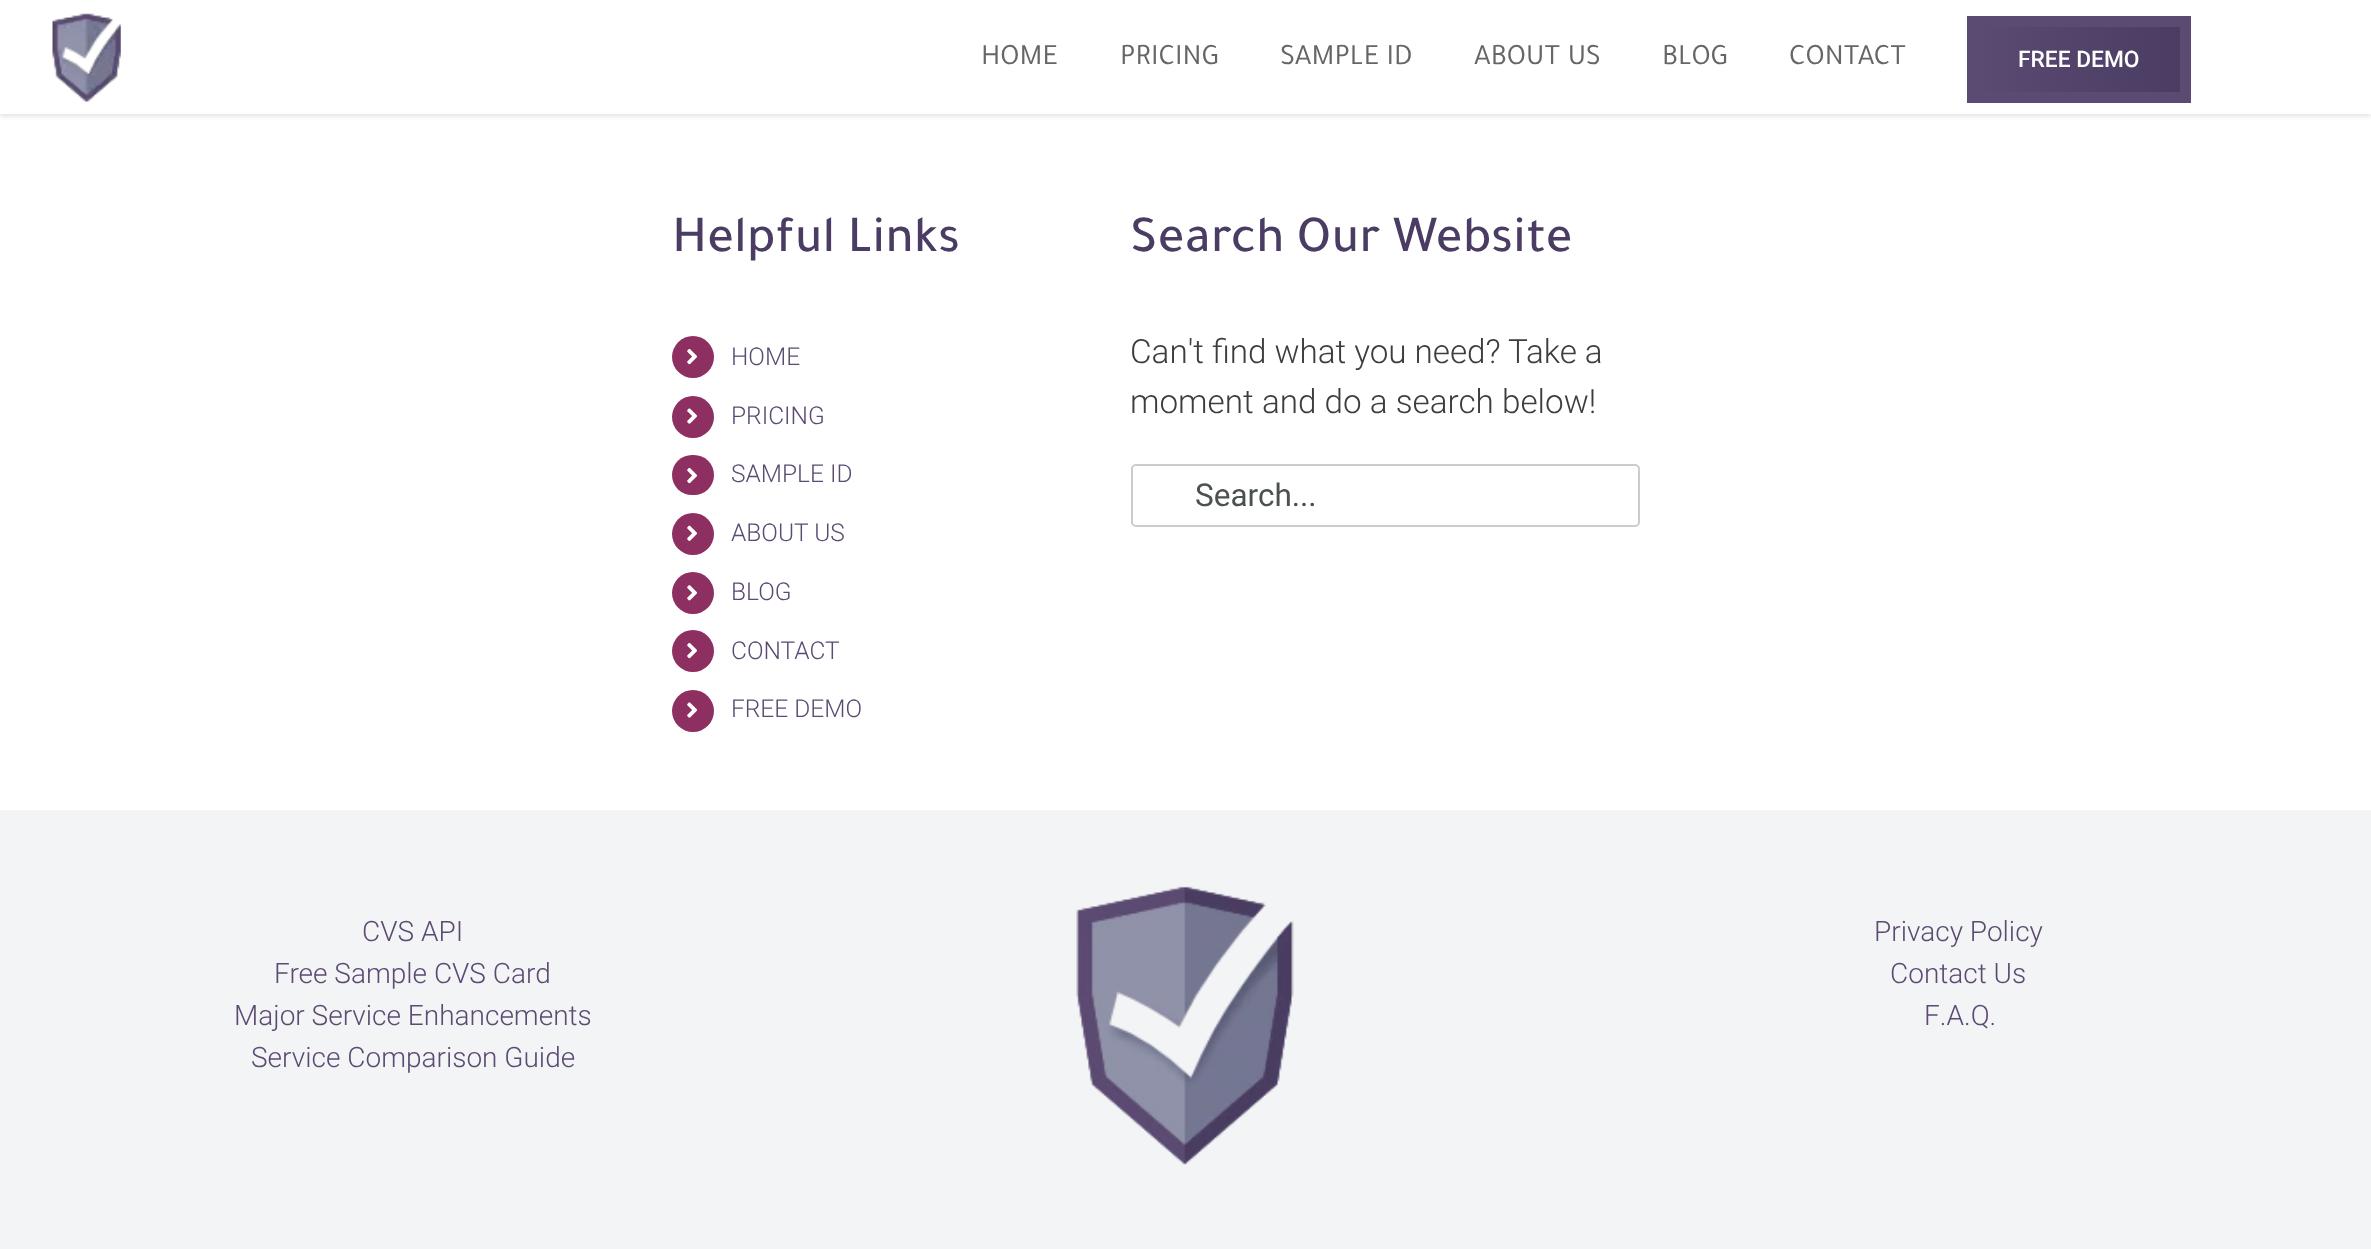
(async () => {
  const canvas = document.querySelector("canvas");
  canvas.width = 2371;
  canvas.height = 1249;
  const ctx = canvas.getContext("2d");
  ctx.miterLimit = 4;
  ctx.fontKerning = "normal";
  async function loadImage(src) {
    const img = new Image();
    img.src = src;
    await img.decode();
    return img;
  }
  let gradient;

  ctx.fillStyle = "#ffffff";
  ctx.fillRect(0, 0, 2371, 1249);
  ctx.fillStyle = "rgba(0, 0, 0, 0.12)";
  ctx.filter = "blur(2.5px)";
  ctx.beginPath();
  ctx.rect(0, 2, 2371, 114);
  ctx.fill();
  ctx.filter = "none";
  ctx.fillStyle = "#ffffff";
  ctx.fillRect(0, 0, 2371, 114);
  ctx.drawImage(await loadImage("img/1.png"), 52, 13, 69, 89);
  gradient = ctx.createLinearGradient(1978, 60, 2181, 60);
  gradient.addColorStop(0, "#5b4a72");
  gradient.addColorStop(1, "#4a3c62");
  ctx.fillStyle = gradient;
  ctx.fillRect(1978, 27, 202, 65);
  ctx.strokeStyle = "#5b4a72";
  ctx.lineWidth = 11;
  ctx.strokeRect(1972.5, 21.5, 213, 76);
  ctx.fillStyle = "#8d2f61";
  ctx.beginPath();
  ctx.arc(693, 357, 21, 0, Math.PI * 2);
  ctx.fill();
  ctx.drawImage(await loadImage("img/2.png"), 687, 348, 10, 17);
  ctx.beginPath();
  ctx.arc(693, 417, 21, 0, Math.PI * 2);
  ctx.fill();
  ctx.drawImage(await loadImage("img/3.png"), 687, 408, 10, 16);
  ctx.beginPath();
  ctx.roundRect(672, 455, 42, 40, 20);
  ctx.fill();
  ctx.drawImage(await loadImage("img/2.png"), 687, 467, 10, 17);
  ctx.beginPath();
  ctx.arc(693, 534, 21, 0, Math.PI * 2);
  ctx.fill();
  ctx.drawImage(await loadImage("img/4.png"), 687, 525, 10, 16);
  ctx.beginPath();
  ctx.arc(693, 593, 21, 0, Math.PI * 2);
  ctx.fill();
  ctx.drawImage(await loadImage("img/5.png"), 687, 585, 10, 16);
  ctx.beginPath();
  ctx.arc(693, 651, 21, 0, Math.PI * 2);
  ctx.fill();
  ctx.drawImage(await loadImage("img/2.png"), 687, 642, 10, 17);
  ctx.beginPath();
  ctx.arc(693, 711, 21, 0, Math.PI * 2);
  ctx.fill();
  ctx.drawImage(await loadImage("img/3.png"), 687, 702, 10, 16);
  ctx.beginPath();
  ctx.roundRect(1132, 465, 507, 61, 4);
  ctx.strokeStyle = "#cccccc";
  ctx.lineWidth = 2;
  ctx.stroke();
  ctx.fillStyle = "#f3f4f6";
  ctx.fillRect(0, 810, 2371, 439);
  ctx.drawImage(await loadImage("img/6.png"), 1076, 886, 218, 279);
  ctx.font = "29.75px Tajawal";
  ctx.fillStyle = "#666666";
  for (const [text, x, y] of [
    ["HOME", 981, 64],
    ["PRICING", 1120, 64],
    ["SAMPLE ID", 1280, 64],
    ["ABOUT US", 1474, 64],
    ["BLOG", 1662, 64],
    ["CONTACT", 1789, 64],
  ]) {
    ctx.fillText(text, x, y);
  }
  ctx.font = "500 22.75px Roboto";
  ctx.fillStyle = "#ffffff";
  ctx.fillText("FREE DEMO", 2018, 67);
  ctx.font = "500 52.5px Tajawal";
  ctx.fillStyle = "#4a3c62";
  ctx.fillText("Helpful Links", 672, 251);
  ctx.font = "300 24.5px Roboto";
  ctx.fillStyle = "#5b4a72";
  for (const [text, x, y] of [
    ["HOME", 731, 365],
    ["PRICING", 731, 424],
    ["SAMPLE ID", 731, 482],
    ["ABOUT US", 731, 541],
    ["BLOG", 731, 600],
    ["CONTACT", 731, 659],
    ["FREE DEMO", 731, 717],
  ]) {
    ctx.fillText(text, x, y);
  }
  ctx.font = "500 52.5px Tajawal";
  ctx.fillStyle = "#4a3c62";
  ctx.fillText("Search Our Website", 1130, 251);
  ctx.wordSpacing = "-0.25px";
  ctx.font = "300 33.25px Roboto";
  ctx.fillStyle = "#3d3d3d";
  ctx.fillText("Can't find what you need? Take a", 1130, 363);
  ctx.wordSpacing = "0px";
  ctx.fillText("moment and do a search below!", 1130, 413);
  ctx.font = "31.5px Roboto";
  ctx.fillStyle = "#4b514c";
  ctx.fillText("Search...", 1195, 506);
  ctx.font = "300 28px Roboto";
  ctx.fillStyle = "#5b4a72";
  for (const [text, x, y] of [
    ["CVS API", 362, 941],
    ["Free Sample CVS Card", 274, 983],
    ["Major Service Enhancements", 234, 1025],
    ["Service Comparison Guide", 251, 1067],
    ["Privacy Policy", 1874, 941],
    ["Contact Us", 1890, 983],
    ["F.A.Q.", 1924, 1025],
  ]) {
    ctx.fillText(text, x, y);
  }
})();
